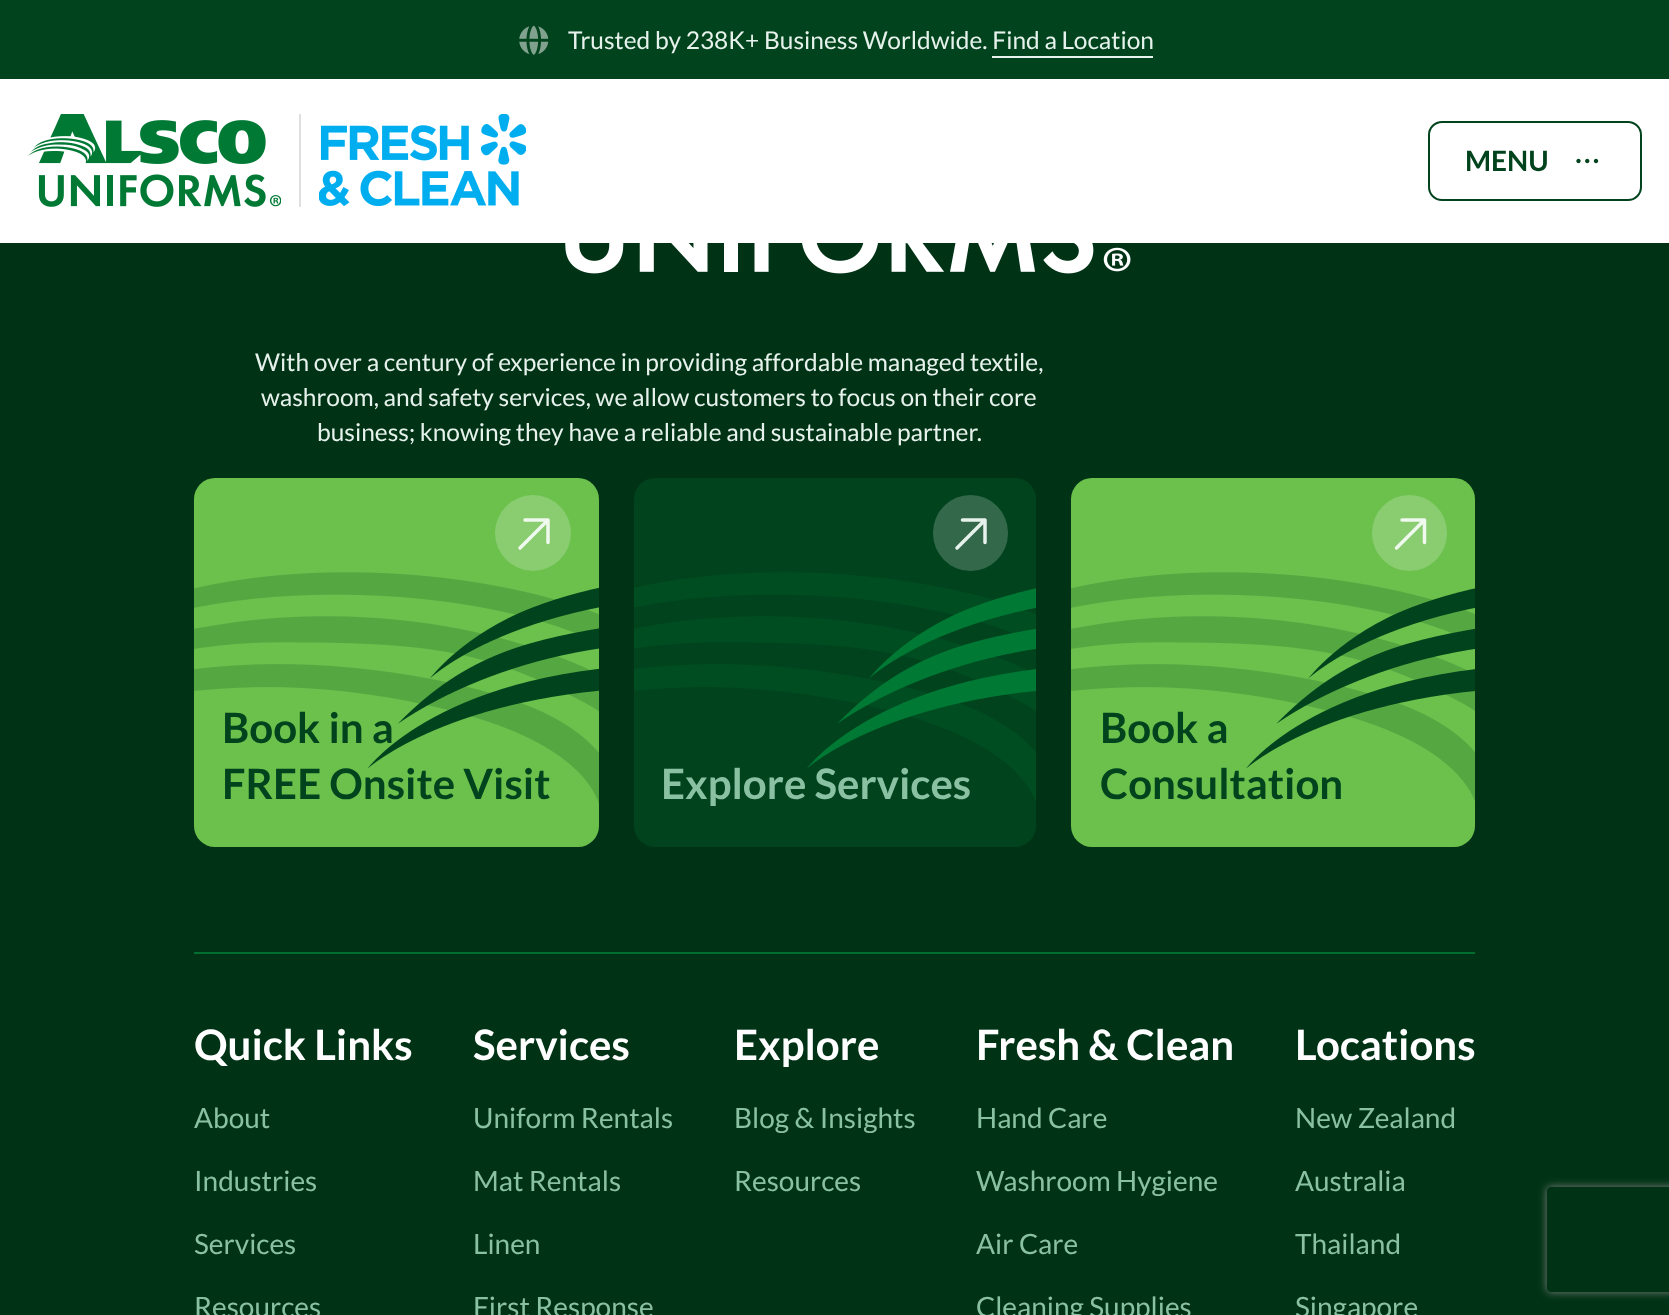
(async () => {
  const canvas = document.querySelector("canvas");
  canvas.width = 1669;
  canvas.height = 1315;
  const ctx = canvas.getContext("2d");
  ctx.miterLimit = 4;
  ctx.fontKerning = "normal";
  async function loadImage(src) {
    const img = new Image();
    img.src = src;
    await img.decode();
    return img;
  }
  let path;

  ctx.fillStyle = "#003316";
  ctx.fillRect(0, 0, 1669, 1315);
  ctx.fillStyle = "#ffffff";
  ctx.fillRect(0, 79, 1669, 164);
  ctx.fillStyle = "#00431d";
  ctx.fillRect(0, 0, 1669, 79);
  ctx.drawImage(await loadImage("img/1.png"), 519, 25, 30, 30);
  ctx.fillStyle = "#e6f2eb";
  ctx.fillRect(992, 56, 161, 2);
  ctx.drawImage(await loadImage("img/2.png"), 28, 114, 253, 93);
  ctx.fillStyle = "#dfdfdf";
  ctx.fillRect(299, 114, 2, 93);
  ctx.drawImage(await loadImage("img/3.png"), 319, 114, 207, 92);
  ctx.beginPath();
  ctx.roundRect(1429, 122, 212, 78, 13);
  ctx.strokeStyle = "#00431d";
  ctx.lineWidth = 2;
  ctx.stroke();
  ctx.drawImage(await loadImage("img/4.png"), 1576, 158, 23, 6);
  ctx.fillStyle = "#006e2f";
  ctx.fillRect(194, 952, 1281, 2);
  ctx.drawImage(await loadImage("img/5.png"), 565, 243, 566, 31);
  ctx.fillStyle = "#6bc14c";
  ctx.beginPath();
  ctx.roundRect(194, 478, 405, 369, 21);
  ctx.fill();
  ctx.fillStyle = "#89cd70";
  ctx.beginPath();
  ctx.arc(533, 533, 38, 0, Math.PI * 2);
  ctx.fill();
  path = new Path2D("M520 548L548 520M525 520H548V542.5");
  ctx.strokeStyle = "#f0f9ed";
  ctx.lineWidth = 3.5;
  ctx.lineCap = "round";
  ctx.lineJoin = "round";
  ctx.stroke(path);
  ctx.fillStyle = "#00431d";
  ctx.beginPath();
  ctx.roundRect(634, 478, 402, 369, 21);
  ctx.fill();
  ctx.fillStyle = "#33694a";
  ctx.beginPath();
  ctx.roundRect(933, 495, 75, 76, 37.5);
  ctx.fill();
  path = new Path2D("M957 548L985 520M962.5 520H985V542.5");
  ctx.strokeStyle = "#e6f2eb";
  ctx.stroke(path);
  ctx.fillStyle = "#6bc14c";
  ctx.beginPath();
  ctx.roundRect(1071, 478, 404, 369, 21);
  ctx.fill();
  ctx.fillStyle = "#89cd70";
  ctx.beginPath();
  ctx.roundRect(1372, 495, 75, 76, 37.5);
  ctx.fill();
  path = new Path2D("M1396.5 548L1424.5 520M1402 520H1424.5V542.5");
  ctx.strokeStyle = "#f0f9ed";
  ctx.stroke(path);
  ctx.save();
  path = new Path2D("M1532 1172H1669V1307H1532ZM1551 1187H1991C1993 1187 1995 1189 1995 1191V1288C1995 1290 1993 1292 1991 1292H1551C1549 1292 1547 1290 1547 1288V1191C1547 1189 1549 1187 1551 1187Z");
  ctx.clip(path, "evenodd");
  ctx.fillStyle = "#808080";
  ctx.filter = "blur(4.5px)";
  ctx.beginPath();
  ctx.roundRect(1547, 1187, 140, 105, 4);
  ctx.fill();
  ctx.filter = "none";
  ctx.restore();
  ctx.font = "24.5px Lato";
  ctx.fillStyle = "#e6f2eb";
  ctx.fillText("Trusted by 238K+ Business Worldwide. Find a Location", 568, 49);
  ctx.font = "bold 28px Lato";
  ctx.fillStyle = "#00431d";
  ctx.fillText("MENU", 1465, 171);
  ctx.font = "24.5px Lato";
  ctx.fillStyle = "#e6f2eb";
  for (const [text, x, y] of [
    ["With over a century of experience in providing affordable managed textile,", 255, 371],
    ["washroom, and safety services, we allow customers to focus on their core", 261, 406],
    ["business; knowing they have a reliable and sustainable partner.", 317, 441],
  ]) {
    ctx.fillText(text, x, y);
  }
  ctx.font = "bold 42px Lato";
  ctx.fillStyle = "#00431d";
  ctx.fillText("Book in a", 222, 743);
  ctx.fillText("FREE Onsite Visit", 222, 799);
  ctx.drawImage(await loadImage("img/6.png"), 194, 572, 405, 231);
  ctx.drawImage(await loadImage("img/7.png"), 368, 587, 231, 181);
  ctx.fillStyle = "#8ac1a2";
  ctx.fillText("Explore Services", 661, 799);
  ctx.drawImage(await loadImage("img/8.png"), 634, 572, 402, 229);
  ctx.drawImage(await loadImage("img/9.png"), 807, 588, 229, 180);
  ctx.fillStyle = "#00431d";
  ctx.fillText("Book a", 1100, 743);
  ctx.fillText("Consultation", 1100, 799);
  ctx.drawImage(await loadImage("img/10.png"), 1071, 572, 404, 229);
  ctx.drawImage(await loadImage("img/11.png"), 1246, 588, 229, 181);
  ctx.fillStyle = "#ffffff";
  ctx.fillText("Quick Links", 194, 1060);
  ctx.font = "28px Lato";
  ctx.fillStyle = "#8ac1a2";
  for (const [text, x, y] of [
    ["About", 194, 1128],
    ["Industries", 194, 1191],
    ["Services", 194, 1254],
    ["Resources", 194, 1317],
  ]) {
    ctx.fillText(text, x, y);
  }
  ctx.font = "bold 42px Lato";
  ctx.fillStyle = "#ffffff";
  ctx.fillText("Services", 473, 1060);
  ctx.font = "28px Lato";
  ctx.fillStyle = "#8ac1a2";
  for (const [text, x, y] of [
    ["Uniform Rentals", 473, 1128],
    ["Mat Rentals", 473, 1191],
    ["Linen", 473, 1254],
    ["First Response", 473, 1317],
  ]) {
    ctx.fillText(text, x, y);
  }
  ctx.font = "bold 42px Lato";
  ctx.fillStyle = "#ffffff";
  ctx.fillText("Explore", 734, 1060);
  ctx.font = "28px Lato";
  ctx.fillStyle = "#8ac1a2";
  ctx.fillText("Blog & Insights", 734, 1128);
  ctx.fillText("Resources", 734, 1191);
  ctx.font = "bold 42px Lato";
  ctx.fillStyle = "#ffffff";
  ctx.fillText("Fresh & Clean", 976, 1060);
  ctx.font = "28px Lato";
  ctx.fillStyle = "#8ac1a2";
  for (const [text, x, y] of [
    ["Hand Care", 976, 1128],
    ["Washroom Hygiene", 976, 1191],
    ["Air Care", 976, 1254],
    ["Cleaning Supplies", 976, 1317],
  ]) {
    ctx.fillText(text, x, y);
  }
  ctx.font = "bold 42px Lato";
  ctx.fillStyle = "#ffffff";
  ctx.fillText("Locations", 1295, 1060);
  ctx.font = "28px Lato";
  ctx.fillStyle = "#8ac1a2";
  for (const [text, x, y] of [
    ["New Zealand", 1295, 1128],
    ["Australia", 1295, 1191],
    ["Thailand", 1295, 1254],
    ["Singapore", 1295, 1317],
  ]) {
    ctx.fillText(text, x, y);
  }
})();
